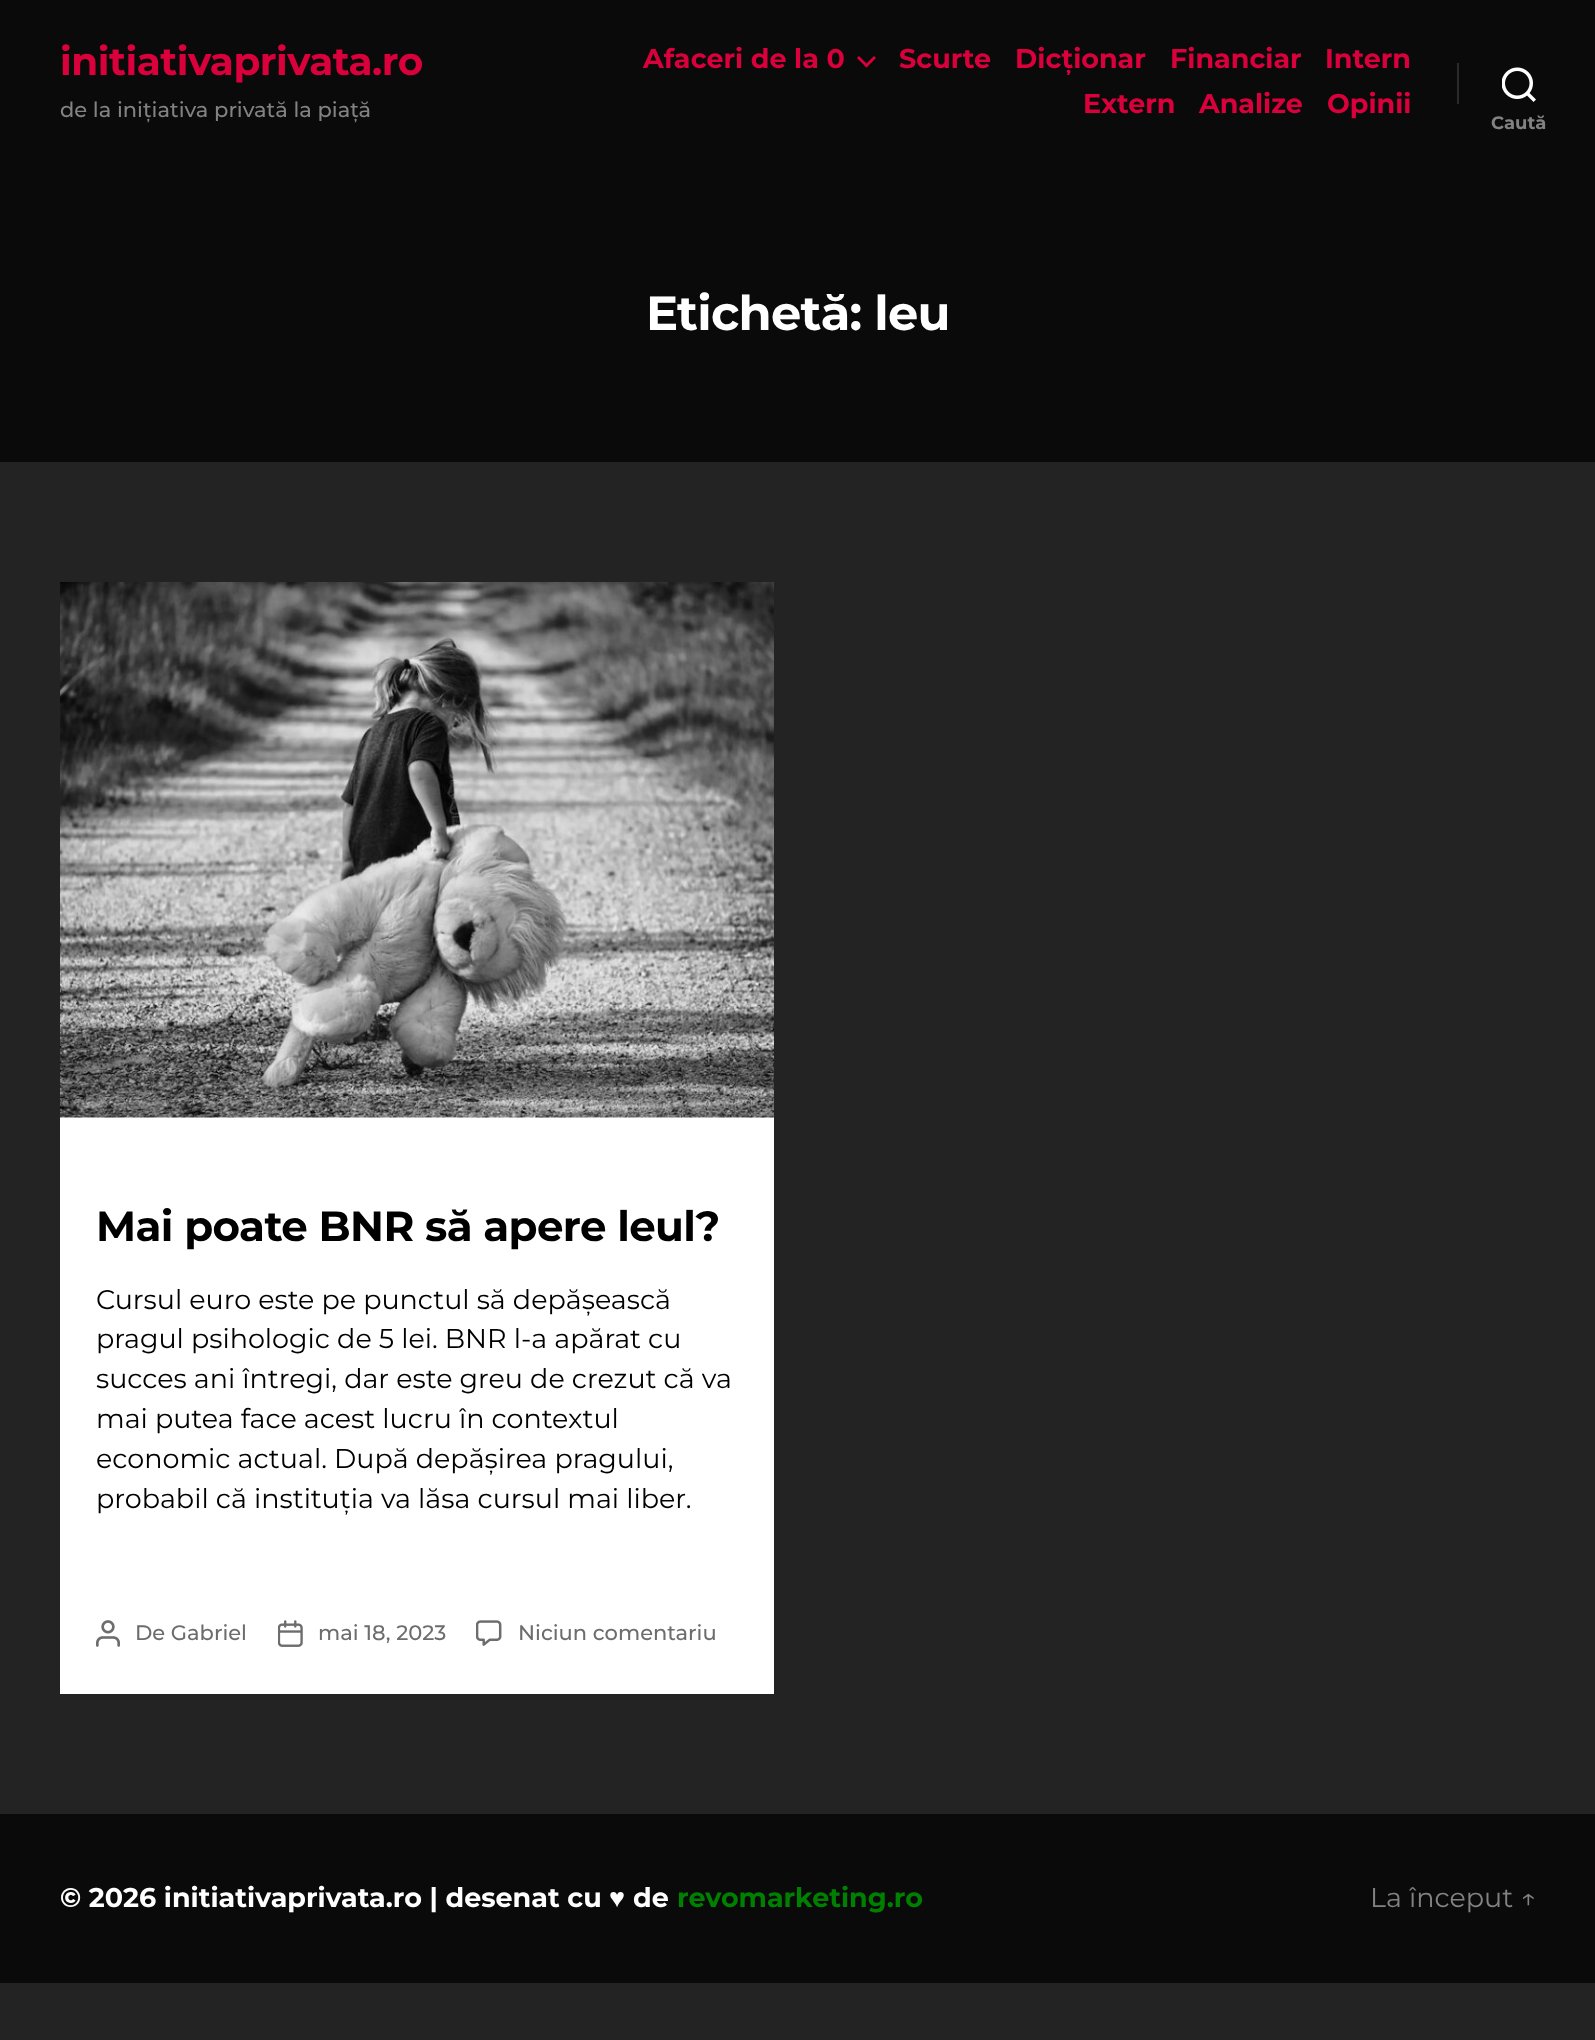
(async () => {
  const canvas = document.querySelector("canvas");
  canvas.width = 1595;
  canvas.height = 2040;
  const ctx = canvas.getContext("2d");
  ctx.miterLimit = 4;
  ctx.fontKerning = "normal";
  async function loadImage(src) {
    const img = new Image();
    img.src = src;
    await img.decode();
    return img;
  }
  let path;

  ctx.fillStyle = "#232323";
  ctx.fillRect(0, 0, 1595, 2040);
  ctx.fillStyle = "#0a0a0a";
  ctx.fillRect(0, 0, 1595, 462);
  ctx.fillStyle = "#da003b";
  path = new Path2D("M857 58L859 56L868.5 65.5L866.5 67.5Z");
  ctx.fill(path);
  path = new Path2D("M864.5 65.5L874 56L876 58L866.5 67.5Z");
  ctx.fill(path);
  ctx.fillStyle = "#2b2b2b";
  ctx.fillRect(1457, 63, 2, 41);
  ctx.drawImage(await loadImage("img/1.png"), 1502, 67, 34, 35);
  ctx.fillStyle = "#ffffff";
  ctx.fillRect(60, 1117, 714, 577);
  ctx.drawImage(await loadImage("img/2.png"), 60, 582, 714, 536);
  ctx.drawImage(await loadImage("img/3.png"), 96, 1620, 24, 27);
  ctx.drawImage(await loadImage("img/4.png"), 278, 1620, 25, 27);
  ctx.drawImage(await loadImage("img/5.png"), 476, 1620, 26, 26);
  ctx.fillStyle = "#0a0a0a";
  ctx.fillRect(0, 1814, 1595, 169);
  ctx.letterSpacing = "-0.5px";
  ctx.font = "bold 39px Montserrat";
  ctx.fillStyle = "#da003b";
  ctx.fillText("initiativaprivata.ro", 60, 75);
  ctx.letterSpacing = "0px";
  ctx.font = "500 21px Montserrat";
  ctx.fillStyle = "#828282";
  ctx.fillText("de la inițiativa privată la piață", 60, 117);
  ctx.font = "bold 27px Montserrat";
  ctx.fillStyle = "#da003b";
  for (const [text, x, y] of [
    ["Afaceri de la 0", 643, 68],
    ["Scurte", 899, 68],
    ["Dicționar", 1015, 68],
    ["Financiar", 1170, 68],
    ["Intern", 1325, 68],
    ["Extern", 1083, 113],
    ["Analize", 1199, 113],
    ["Opinii", 1327, 113],
  ]) {
    ctx.fillText(text, x, y);
  }
  ctx.font = "bold 18px Montserrat";
  ctx.fillStyle = "#828282";
  ctx.fillText("Caută", 1491, 129);
  ctx.letterSpacing = "-0.75px";
  ctx.font = "bold 48px Montserrat";
  ctx.fillStyle = "#ffffff";
  ctx.fillText("Etichetă: leu", 646, 330);
  ctx.letterSpacing = "-0.6px";
  ctx.font = "bold 42px Montserrat";
  ctx.fillStyle = "#000000";
  ctx.fillText("Mai poate BNR să apere leul?", 96, 1241);
  ctx.letterSpacing = "0px";
  ctx.font = "27px Montserrat";
  for (const [text, x, y] of [
    ["Cursul euro este pe punctul să depășească", 96, 1309],
    ["pragul psihologic de 5 lei. BNR l-a apărat cu", 96, 1348],
    ["succes ani întregi, dar este greu de crezut că va", 96, 1388],
    ["mai putea face acest lucru în contextul", 96, 1428],
    ["economic actual. După depășirea pragului,", 96, 1468],
    ["probabil că instituția va lăsa cursul mai liber.", 96, 1508],
  ]) {
    ctx.fillText(text, x, y);
  }
  ctx.font = "500 21px Montserrat";
  ctx.fillStyle = "#6d6d6d";
  for (const [text, x, y] of [
    ["De Gabriel", 135, 1640],
    ["mai 18, 2023", 318, 1640],
    ["Niciun comentariu", 518, 1640],
  ]) {
    ctx.fillText(text, x, y);
  }
  ctx.font = "bold 27px Montserrat";
  ctx.fillStyle = "#ffffff";
  ctx.fillText("© 2026 initiativaprivata.ro | desenat cu", 60, 1907);
  ctx.font = "bold 27px Liberation Sans";
  ctx.fillText("♥", 609, 1907);
  ctx.font = "bold 27px Montserrat";
  ctx.fillText("de", 633, 1907);
  ctx.fillStyle = "#008000";
  ctx.fillText("revomarketing.ro", 677, 1907);
  ctx.font = "27px Montserrat";
  ctx.fillStyle = "#828282";
  ctx.fillText("La început ↑", 1370, 1907);
})();
